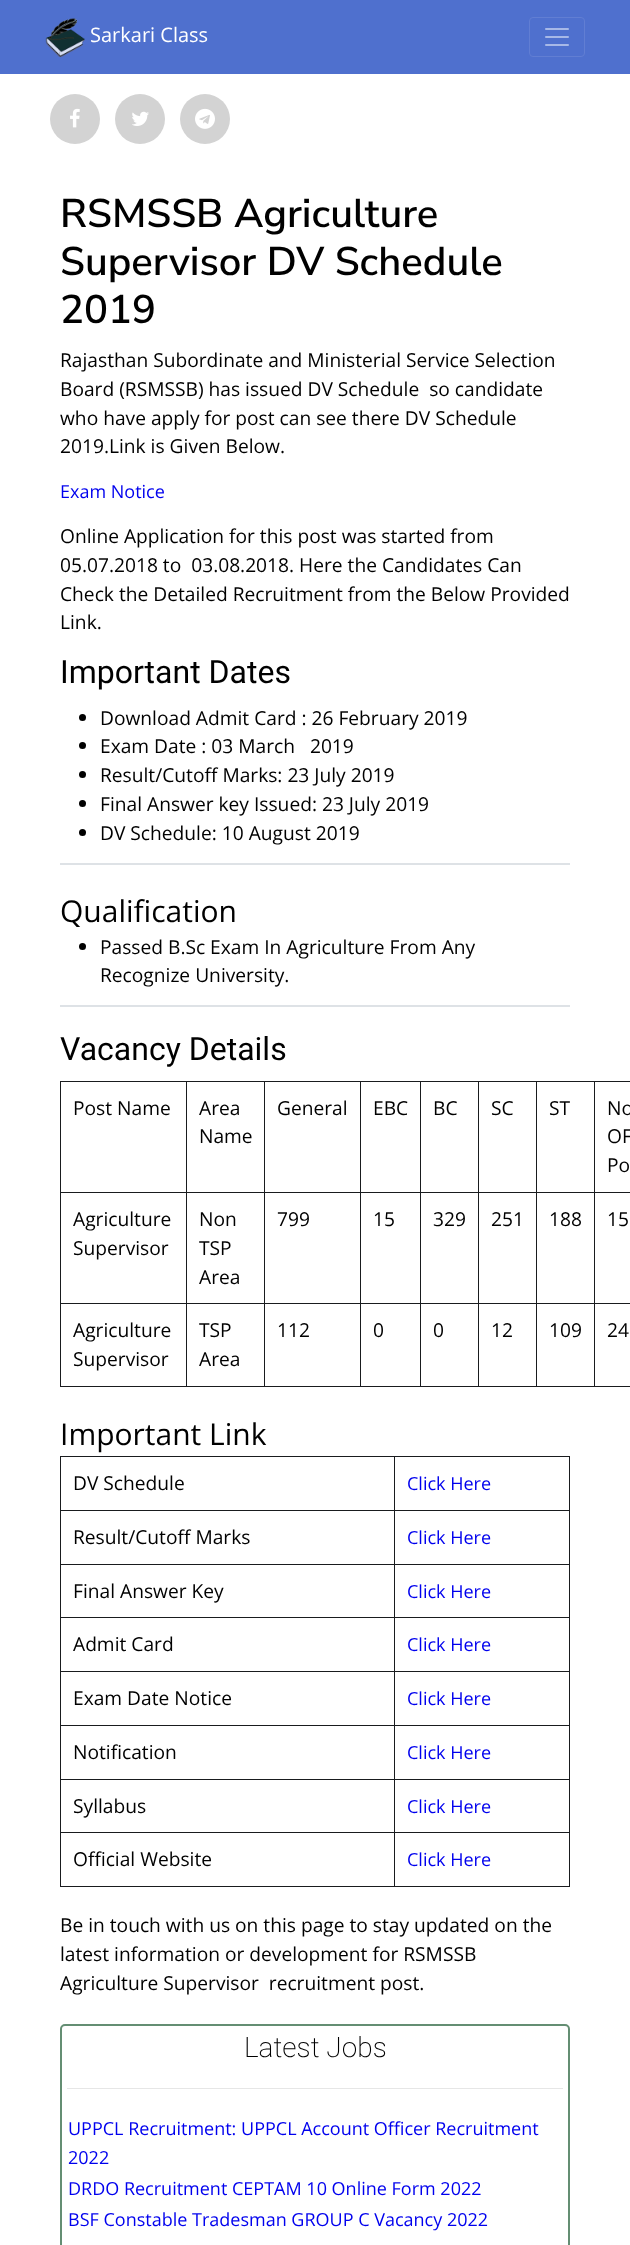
(async () => {
  const canvas = document.querySelector("canvas");
  canvas.width = 630;
  canvas.height = 2245;
  const ctx = canvas.getContext("2d");
  ctx.miterLimit = 4;
  ctx.fontKerning = "normal";
  async function loadImage(src) {
    const img = new Image();
    img.src = src;
    await img.decode();
    return img;
  }

  ctx.fillStyle = "#ffffff";
  ctx.fillRect(0, 0, 630, 2245);
  ctx.fillStyle = "#4f70ce";
  ctx.fillRect(0, 0, 630, 74);
  ctx.drawImage(await loadImage("img/1.png"), 45, 18, 40, 39);
  ctx.beginPath();
  ctx.roundRect(529.5, 17.5, 55, 39, 3.5);
  ctx.strokeStyle = "#617ed3";
  ctx.stroke();
  ctx.drawImage(await loadImage("img/2.png"), 545, 28, 24, 18);
  ctx.fillStyle = "#d3d3d3";
  ctx.beginPath();
  ctx.arc(75, 119, 25, 0, Math.PI * 2);
  ctx.fill();
  ctx.drawImage(await loadImage("img/3.png"), 70, 108, 10, 20);
  ctx.beginPath();
  ctx.arc(140, 119, 25, 0, Math.PI * 2);
  ctx.fill();
  ctx.drawImage(await loadImage("img/4.png"), 132, 111, 17, 15);
  ctx.beginPath();
  ctx.arc(205, 119, 25, 0, Math.PI * 2);
  ctx.fill();
  ctx.drawImage(await loadImage("img/5.png"), 195, 108, 20, 21);
  ctx.fillStyle = "#000000";
  ctx.beginPath();
  ctx.arc(82.5, 717.5, 3.5, 0, Math.PI * 2);
  ctx.fill();
  ctx.beginPath();
  ctx.arc(82.5, 745.5, 3.5, 0, Math.PI * 2);
  ctx.fill();
  ctx.beginPath();
  ctx.arc(82.5, 774.5, 3.5, 0, Math.PI * 2);
  ctx.fill();
  ctx.beginPath();
  ctx.arc(82.5, 803.5, 3.5, 0, Math.PI * 2);
  ctx.fill();
  ctx.beginPath();
  ctx.arc(82.5, 832.5, 3.5, 0, Math.PI * 2);
  ctx.fill();
  ctx.fillStyle = "#dee2e6";
  ctx.fillRect(60, 863, 510, 2);
  ctx.fillStyle = "#000000";
  ctx.beginPath();
  ctx.arc(82.5, 946.5, 3.5, 0, Math.PI * 2);
  ctx.fill();
  for (const [x, y, w, h, color] of [
    [60, 1005, 510, 2, "#dee2e6"],
    [594, 1081, 36, 1, "#191b1e"],
    [594, 1192, 36, 1, "#191b1e"],
    [594, 1303, 36, 1, "#191b1e"],
    [594, 1386, 36, 1, "#191b1e"],
    [594, 1303, 1, 84, "#191b1e"],
    [536, 1303, 59, 1, "#191b1e"],
    [594, 1192, 1, 112, "#191b1e"],
    [536, 1192, 59, 1, "#191b1e"],
    [594, 1081, 1, 112, "#191b1e"],
    [536, 1081, 59, 1, "#191b1e"],
    [536, 1386, 59, 1, "#191b1e"],
    [536, 1303, 1, 84, "#191b1e"],
    [478, 1303, 59, 1, "#191b1e"],
    [536, 1192, 1, 112, "#191b1e"],
    [478, 1192, 59, 1, "#191b1e"],
    [536, 1081, 1, 112, "#191b1e"],
    [478, 1081, 59, 1, "#191b1e"],
    [478, 1386, 59, 1, "#191b1e"],
    [478, 1303, 1, 84, "#191b1e"],
    [420, 1303, 59, 1, "#191b1e"],
    [478, 1192, 1, 112, "#191b1e"],
    [420, 1192, 59, 1, "#191b1e"],
    [478, 1081, 1, 112, "#191b1e"],
    [420, 1081, 59, 1, "#191b1e"],
    [420, 1386, 59, 1, "#191b1e"],
    [420, 1303, 1, 84, "#191b1e"],
    [360, 1303, 61, 1, "#191b1e"],
    [420, 1192, 1, 112, "#191b1e"],
    [360, 1192, 61, 1, "#191b1e"],
    [420, 1081, 1, 112, "#191b1e"],
    [360, 1081, 61, 1, "#191b1e"],
    [360, 1386, 61, 1, "#191b1e"],
    [360, 1303, 1, 84, "#191b1e"],
    [264, 1303, 97, 1, "#191b1e"],
    [360, 1192, 1, 112, "#191b1e"],
    [264, 1192, 97, 1, "#191b1e"],
    [360, 1081, 1, 112, "#191b1e"],
    [264, 1081, 97, 1, "#191b1e"],
    [264, 1386, 97, 1, "#191b1e"],
    [264, 1303, 1, 84, "#191b1e"],
    [186, 1303, 79, 1, "#191b1e"],
    [264, 1192, 1, 112, "#191b1e"],
    [186, 1192, 79, 1, "#191b1e"],
    [264, 1081, 1, 112, "#191b1e"],
    [186, 1081, 79, 1, "#191b1e"],
    [186, 1386, 79, 1, "#191b1e"],
    [186, 1303, 1, 84, "#191b1e"],
    [60, 1303, 127, 1, "#191b1e"],
    [186, 1192, 1, 112, "#191b1e"],
    [60, 1192, 127, 1, "#191b1e"],
    [186, 1081, 1, 112, "#191b1e"],
    [60, 1081, 127, 1, "#191b1e"],
    [60, 1386, 127, 1, "#191b1e"],
    [60, 1303, 1, 84, "#191b1e"],
    [60, 1192, 1, 112, "#191b1e"],
    [60, 1081, 1, 112, "#191b1e"],
    [394, 1456, 176, 1, "#191b1e"],
    [394, 1510, 176, 1, "#191b1e"],
    [394, 1564, 176, 1, "#191b1e"],
    [394, 1617, 176, 1, "#191b1e"],
    [394, 1671, 176, 1, "#191b1e"],
    [394, 1725, 176, 1, "#191b1e"],
    [394, 1779, 176, 1, "#191b1e"],
    [394, 1832, 176, 1, "#191b1e"],
    [569, 1832, 1, 55, "#191b1e"],
    [394, 1886, 176, 1, "#191b1e"],
    [394, 1832, 1, 55, "#191b1e"],
    [60, 1832, 335, 1, "#191b1e"],
    [394, 1779, 1, 54, "#191b1e"],
    [60, 1779, 335, 1, "#191b1e"],
    [394, 1725, 1, 55, "#191b1e"],
    [60, 1725, 335, 1, "#191b1e"],
    [394, 1671, 1, 55, "#191b1e"],
    [60, 1671, 335, 1, "#191b1e"],
    [394, 1617, 1, 55, "#191b1e"],
    [60, 1617, 335, 1, "#191b1e"],
    [394, 1564, 1, 54, "#191b1e"],
    [60, 1564, 335, 1, "#191b1e"],
    [394, 1510, 1, 55, "#191b1e"],
    [60, 1510, 335, 1, "#191b1e"],
    [394, 1456, 1, 55, "#191b1e"],
    [60, 1456, 335, 1, "#191b1e"],
    [60, 1886, 335, 1, "#191b1e"],
    [60, 1832, 1, 55, "#191b1e"],
    [60, 1779, 1, 54, "#191b1e"],
    [60, 1725, 1, 55, "#191b1e"],
    [60, 1671, 1, 55, "#191b1e"],
    [60, 1617, 1, 55, "#191b1e"],
    [60, 1564, 1, 54, "#191b1e"],
    [60, 1510, 1, 55, "#191b1e"],
    [60, 1456, 1, 55, "#191b1e"],
    [569, 1779, 1, 54, "#191b1e"],
    [569, 1725, 1, 55, "#191b1e"],
    [569, 1671, 1, 55, "#191b1e"],
    [569, 1617, 1, 55, "#191b1e"],
    [569, 1564, 1, 54, "#191b1e"],
    [569, 1510, 1, 55, "#191b1e"],
    [569, 1456, 1, 55, "#191b1e"],
  ]) {
    ctx.fillStyle = color;
    ctx.fillRect(x, y, w, h);
  }
  ctx.beginPath();
  ctx.roundRect(61, 2025, 508, 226, 4);
  ctx.strokeStyle = "#648e73";
  ctx.lineWidth = 2;
  ctx.stroke();
  ctx.fillStyle = "#e6e6e6";
  ctx.fillRect(67, 2088, 496, 1);
  ctx.font = "20px Open Sans";
  ctx.fillStyle = "#ffffff";
  ctx.fillText("Sarkari Class", 90, 42);
  ctx.font = "600 40px Nunito Sans";
  ctx.fillStyle = "#000000";
  for (const [text, x, y] of [
    ["RSMSSB Agriculture", 60, 227],
    ["Supervisor DV Schedule", 60, 275],
    ["2019", 60, 323],
  ]) {
    ctx.fillText(text, x, y);
  }
  ctx.font = "19.2px Open Sans";
  for (const [text, x, y] of [
    ["Rajasthan Subordinate and Ministerial Service Selection", 60, 367],
    ["Board (RSMSSB) has issued DV Schedule  so candidate", 60, 396],
    ["who have apply for post can see there DV Schedule", 60, 425],
    ["2019.Link is Given Below.", 60, 453],
  ]) {
    ctx.fillText(text, x, y);
  }
  ctx.font = "18px Open Sans";
  ctx.fillStyle = "#0000ee";
  ctx.fillText("Exam Notice", 60, 498);
  ctx.font = "19.2px Open Sans";
  ctx.fillStyle = "#000000";
  for (const [text, x, y] of [
    ["Online Application for this post was started from", 60, 543],
    ["05.07.2018 to  03.08.2018. Here the Candidates Can", 60, 572],
    ["Check the Detailed Recruitment from the Below Provided", 60, 601],
    ["Link.", 60, 629],
  ]) {
    ctx.fillText(text, x, y);
  }
  ctx.font = "32px Roboto";
  ctx.fillText("Important Dates", 60, 683);
  ctx.font = "19.2px Open Sans";
  for (const [text, x, y] of [
    ["Download Admit Card : 26 February 2019", 100, 725],
    ["Exam Date : 03 March   2019", 100, 753],
    ["Result/Cutoff Marks: 23 July 2019", 100, 782],
    ["Final Answer key Issued: 23 July 2019", 100, 811],
    ["DV Schedule: 10 August 2019", 100, 840],
  ]) {
    ctx.fillText(text, x, y);
  }
  ctx.font = "30px Open Sans";
  ctx.fillText("Qualification", 60, 922);
  ctx.font = "19.2px Open Sans";
  ctx.fillText("Passed B.Sc Exam In Agriculture From Any", 100, 954);
  ctx.fillText("Recognize University.", 100, 982);
  ctx.font = "32px Roboto";
  ctx.fillText("Vacancy Details", 60, 1060);
  ctx.font = "19.2px Open Sans";
  for (const [text, x, y] of [
    ["Post Name", 73, 1115],
    ["Area", 199, 1115],
    ["Name", 199, 1143],
    ["General", 277, 1115],
    ["EBC", 373, 1115],
    ["BC", 433, 1115],
    ["SC", 491, 1115],
    ["ST", 549, 1115],
    ["No", 607, 1115],
    ["OF", 607, 1143],
    ["Po", 607, 1172],
    ["Agriculture", 73, 1226],
    ["Supervisor", 73, 1255],
    ["Non", 199, 1226],
    ["TSP", 199, 1255],
    ["Area", 199, 1284],
    ["799", 277, 1226],
    ["15", 373, 1226],
    ["329", 433, 1226],
    ["251", 491, 1226],
    ["188", 549, 1226],
    ["15", 607, 1226],
    ["Agriculture", 73, 1337],
    ["Supervisor", 73, 1366],
    ["TSP", 199, 1337],
    ["Area", 199, 1366],
    ["112", 277, 1337],
    ["0", 373, 1337],
    ["0", 433, 1337],
    ["12", 491, 1337],
    ["109", 549, 1337],
    ["24", 607, 1337],
  ]) {
    ctx.fillText(text, x, y);
  }
  ctx.font = "30px Open Sans";
  ctx.fillText("Important Link", 60, 1445);
  ctx.font = "19.2px Open Sans";
  ctx.fillText("DV Schedule", 73, 1490);
  ctx.font = "18px Open Sans";
  ctx.fillStyle = "#0000ee";
  ctx.fillText("Click Here", 407, 1490);
  ctx.font = "19.2px Open Sans";
  ctx.fillStyle = "#000000";
  ctx.fillText("Result/Cutoff Marks", 73, 1544);
  ctx.font = "18px Open Sans";
  ctx.fillStyle = "#0000ee";
  ctx.fillText("Click Here", 407, 1544);
  ctx.font = "19.2px Open Sans";
  ctx.fillStyle = "#000000";
  ctx.fillText("Final Answer Key", 73, 1598);
  ctx.font = "18px Open Sans";
  ctx.fillStyle = "#0000ee";
  ctx.fillText("Click Here", 407, 1598);
  ctx.font = "19.2px Open Sans";
  ctx.fillStyle = "#000000";
  ctx.fillText("Admit Card", 73, 1651);
  ctx.font = "18px Open Sans";
  ctx.fillStyle = "#0000ee";
  ctx.fillText("Click Here", 407, 1651);
  ctx.font = "19.2px Open Sans";
  ctx.fillStyle = "#000000";
  ctx.fillText("Exam Date Notice", 73, 1705);
  ctx.font = "18px Open Sans";
  ctx.fillStyle = "#0000ee";
  ctx.fillText("Click Here", 407, 1705);
  ctx.font = "19.2px Open Sans";
  ctx.fillStyle = "#000000";
  ctx.fillText("Notification", 73, 1759);
  ctx.font = "18px Open Sans";
  ctx.fillStyle = "#0000ee";
  ctx.fillText("Click Here", 407, 1759);
  ctx.font = "19.2px Open Sans";
  ctx.fillStyle = "#000000";
  ctx.fillText("Syllabus", 73, 1813);
  ctx.font = "18px Open Sans";
  ctx.fillStyle = "#0000ee";
  ctx.fillText("Click Here", 407, 1813);
  ctx.font = "19.2px Open Sans";
  ctx.fillStyle = "#000000";
  ctx.fillText("Official Website", 73, 1866);
  ctx.font = "18px Open Sans";
  ctx.fillStyle = "#0000ee";
  ctx.fillText("Click Here", 407, 1866);
  ctx.font = "19.2px Open Sans";
  ctx.fillStyle = "#000000";
  for (const [text, x, y] of [
    ["Be in touch with us on this page to stay updated on the", 60, 1932],
    ["latest information or development for RSMSSB", 60, 1961],
    ["Agriculture Supervisor  recruitment post.", 60, 1990],
  ]) {
    ctx.fillText(text, x, y);
  }
  ctx.font = "200 28px Roboto";
  ctx.fillText("Latest Jobs", 244, 2057);
  ctx.font = "18px Open Sans";
  ctx.fillStyle = "#0000ee";
  for (const [text, x, y] of [
    ["UPPCL Recruitment: UPPCL Account Officer Recruitment", 68, 2135],
    ["2022", 68, 2164],
    ["DRDO Recruitment CEPTAM 10 Online Form 2022", 68, 2195],
    ["BSF Constable Tradesman GROUP C Vacancy 2022", 68, 2226],
  ]) {
    ctx.fillText(text, x, y);
  }
})();
